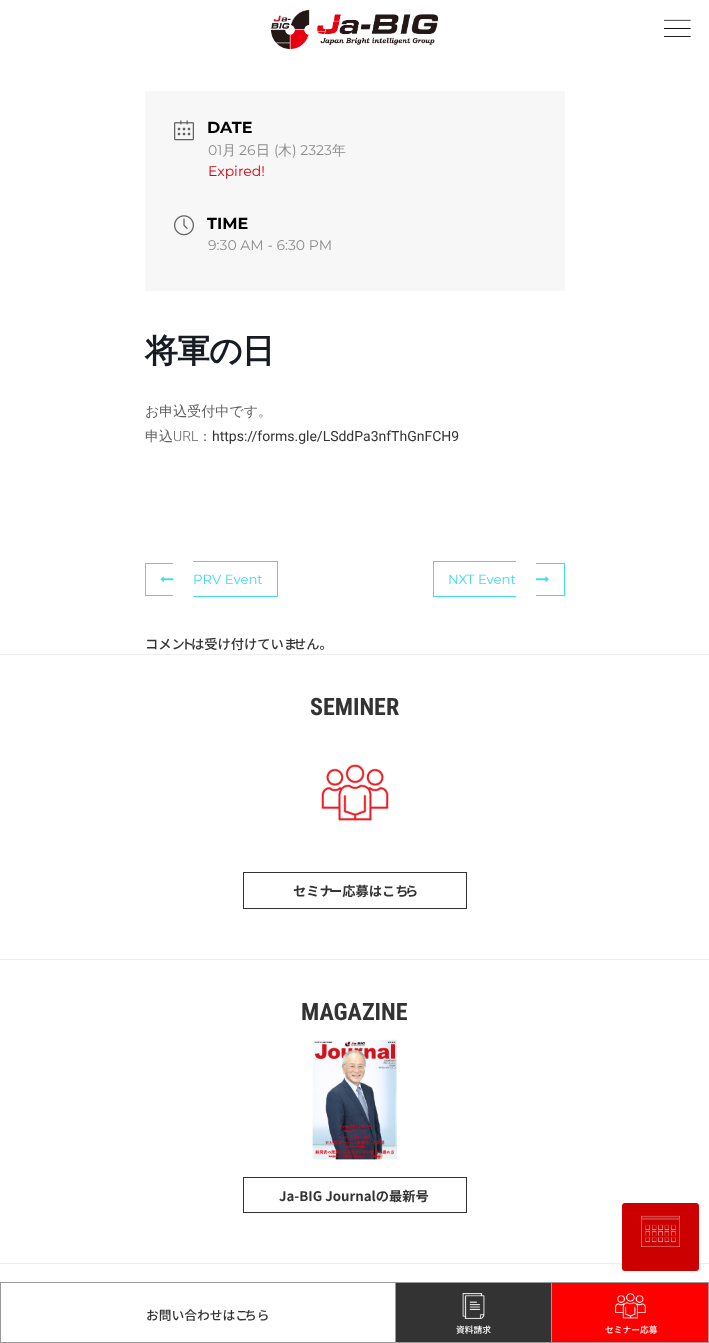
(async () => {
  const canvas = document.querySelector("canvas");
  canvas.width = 709;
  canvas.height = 1343;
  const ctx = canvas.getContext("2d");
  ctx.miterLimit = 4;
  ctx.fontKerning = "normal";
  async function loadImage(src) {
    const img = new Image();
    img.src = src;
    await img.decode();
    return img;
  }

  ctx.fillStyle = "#ffffff";
  ctx.fillRect(0, 0, 709, 1343);
  ctx.drawImage(await loadImage("img/1.png"), 271, 10, 167, 39);
  ctx.drawImage(await loadImage("img/2.png"), 664, 19, 27, 18);
  ctx.fillStyle = "#f7f7f7";
  ctx.fillRect(145, 91, 420, 200);
  ctx.drawImage(await loadImage("img/3.png"), 174, 120, 20, 21);
  ctx.drawImage(await loadImage("img/4.png"), 174, 215, 20, 21);
  ctx.drawImage(await loadImage("img/5.png"), 160, 576, 14, 6);
  for (const [x, y, w, h, color] of [
    [145, 563, 28, 1, "#40d9f1"],
    [145, 595, 28, 1, "#40d9f1"],
    [145, 563, 1, 33, "#40d9f1"],
    [193, 561, 85, 1, "#40d9f1"],
    [277, 561, 1, 36, "#40d9f1"],
    [193, 596, 85, 1, "#40d9f1"],
    [433, 561, 83, 1, "#40d9f1"],
    [433, 596, 83, 1, "#40d9f1"],
    [433, 561, 1, 36, "#40d9f1"],
    [536, 563, 29, 1, "#40d9f1"],
    [564, 563, 1, 33, "#40d9f1"],
    [536, 595, 29, 1, "#40d9f1"],
  ]) {
    ctx.fillStyle = color;
    ctx.fillRect(x, y, w, h);
  }
  ctx.drawImage(await loadImage("img/6.png"), 536, 576, 13, 6);
  ctx.fillStyle = "#eeeeee";
  ctx.fillRect(0, 654, 709, 1);
  ctx.fillRect(0, 959, 709, 1);
  ctx.drawImage(await loadImage("img/7.png"), 321, 764, 68, 57);
  ctx.strokeStyle = "#333333";
  ctx.strokeRect(243.5, 872.5, 223, 36);
  ctx.fillRect(0, 1263, 709, 1);
  ctx.drawImage(await loadImage("img/8.png"), 312, 1039, 85, 121);
  ctx.strokeRect(243.5, 1177.5, 223, 35);
  ctx.fillStyle = "#cc0000";
  ctx.beginPath();
  ctx.roundRect(622, 1203, 77, 68, 3);
  ctx.fill();
  ctx.drawImage(await loadImage("img/9.png"), 641, 1215, 39, 32);
  for (const [x, y, w, h, color] of [
    [0, 1282, 709, 1, "#999999"],
    [0, 1342, 709, 1, "#999999"],
    [395, 1282, 1, 61, "#999999"],
    [0, 1282, 1, 61, "#999999"],
    [396, 1283, 155, 59, "#333333"],
    [551, 1282, 1, 61, "#999999"],
  ]) {
    ctx.fillStyle = color;
    ctx.fillRect(x, y, w, h);
  }
  ctx.drawImage(await loadImage("img/10.png"), 462, 1293, 23, 26);
  ctx.fillStyle = "#ff0000";
  ctx.fillRect(552, 1283, 156, 59);
  ctx.fillStyle = "#999999";
  ctx.fillRect(708, 1282, 1, 61);
  ctx.drawImage(await loadImage("img/11.png"), 615, 1293, 31, 26);
  ctx.font = "bold 16px Montserrat";
  ctx.fillStyle = "#000000";
  ctx.fillText("DATE", 207, 133);
  ctx.font = "14px Montserrat";
  ctx.fillStyle = "#8d8d8d";
  ctx.fillText("01", 208, 155);
  ctx.font = "500 14px WenQuanYi Zen Hei";
  ctx.fillText("月", 222, 155);
  ctx.font = "14px Montserrat";
  ctx.fillText("26", 239, 155);
  ctx.font = "500 14px WenQuanYi Zen Hei";
  ctx.fillText("日", 256, 155);
  ctx.font = "14px Montserrat";
  ctx.fillText("(", 274, 155);
  ctx.font = "500 14px WenQuanYi Zen Hei";
  ctx.fillText("木", 278, 155);
  ctx.font = "14px Montserrat";
  ctx.fillText(") 2323", 292, 155);
  ctx.font = "500 14px WenQuanYi Zen Hei";
  ctx.fillText("年", 332, 155);
  ctx.font = "14px Montserrat";
  ctx.fillStyle = "#d8000c";
  ctx.fillText("Expired!", 208, 176);
  ctx.font = "bold 16px Montserrat";
  ctx.fillStyle = "#000000";
  ctx.fillText("TIME", 207, 229);
  ctx.font = "14px Montserrat";
  ctx.fillStyle = "#8d8d8d";
  ctx.fillText("9:30 AM - 6:30 PM", 208, 250);
  ctx.letterSpacing = "-1px";
  ctx.font = "bold 33px WenQuanYi Zen Hei";
  ctx.fillStyle = "#171c24";
  ctx.fillText("将軍の日", 145, 362);
  ctx.letterSpacing = "0px";
  ctx.font = "500 14px WenQuanYi Zen Hei";
  ctx.fillStyle = "#616161";
  ctx.fillText("お申込受付中です。", 145, 416);
  ctx.fillText("申込", 145, 441);
  ctx.font = "300 14px Roboto";
  ctx.fillText("URL", 173, 441);
  ctx.font = "500 14px WenQuanYi Zen Hei";
  ctx.fillText("：", 198, 441);
  ctx.font = "14px Roboto";
  ctx.fillStyle = "#333333";
  ctx.fillText("https://forms.gle/LSddPa3nfThGnFCH9", 212, 441);
  ctx.font = "13.25px Montserrat";
  ctx.fillStyle = "#40d9f1";
  ctx.fillText("PRV Event", 193, 584);
  ctx.fillText("NXT Event", 448, 584);
  ctx.font = "500 13.25px Noto Sans JP";
  ctx.fillStyle = "#333333";
  ctx.fillText("コメン", 145, 649);
  ctx.fillText("ト", 181, 649);
  ctx.fillText("は受け付けていま", 191, 649);
  ctx.fillText("せん。", 293, 649);
  ctx.font = "bold 24px Roboto Condensed";
  ctx.fillText("SEMINER", 310, 715);
  ctx.font = "bold 13.25px Noto Sans JP";
  ctx.fillText("セミナ", 293, 896);
  ctx.fillText("ー応募はこち", 329, 896);
  ctx.fillText("ら", 405, 896);
  ctx.font = "bold 24px Roboto Condensed";
  ctx.fillText("MAGAZINE", 301, 1020);
  ctx.font = "bold 13.25px Noto Sans JP";
  ctx.fillText("Ja-BIG Journalの最新号", 279, 1201);
  ctx.font = "500 12.75px Noto Sans JP";
  ctx.fillText("お問い合わせはこ", 146, 1320);
  ctx.fillText("ちら", 244, 1320);
  ctx.font = "500 8.75px Noto Sans JP";
  ctx.fillStyle = "#ffffff";
  ctx.fillText("資料請求", 456, 1333);
  ctx.fillText("セミナー応募", 605, 1333);
})();
